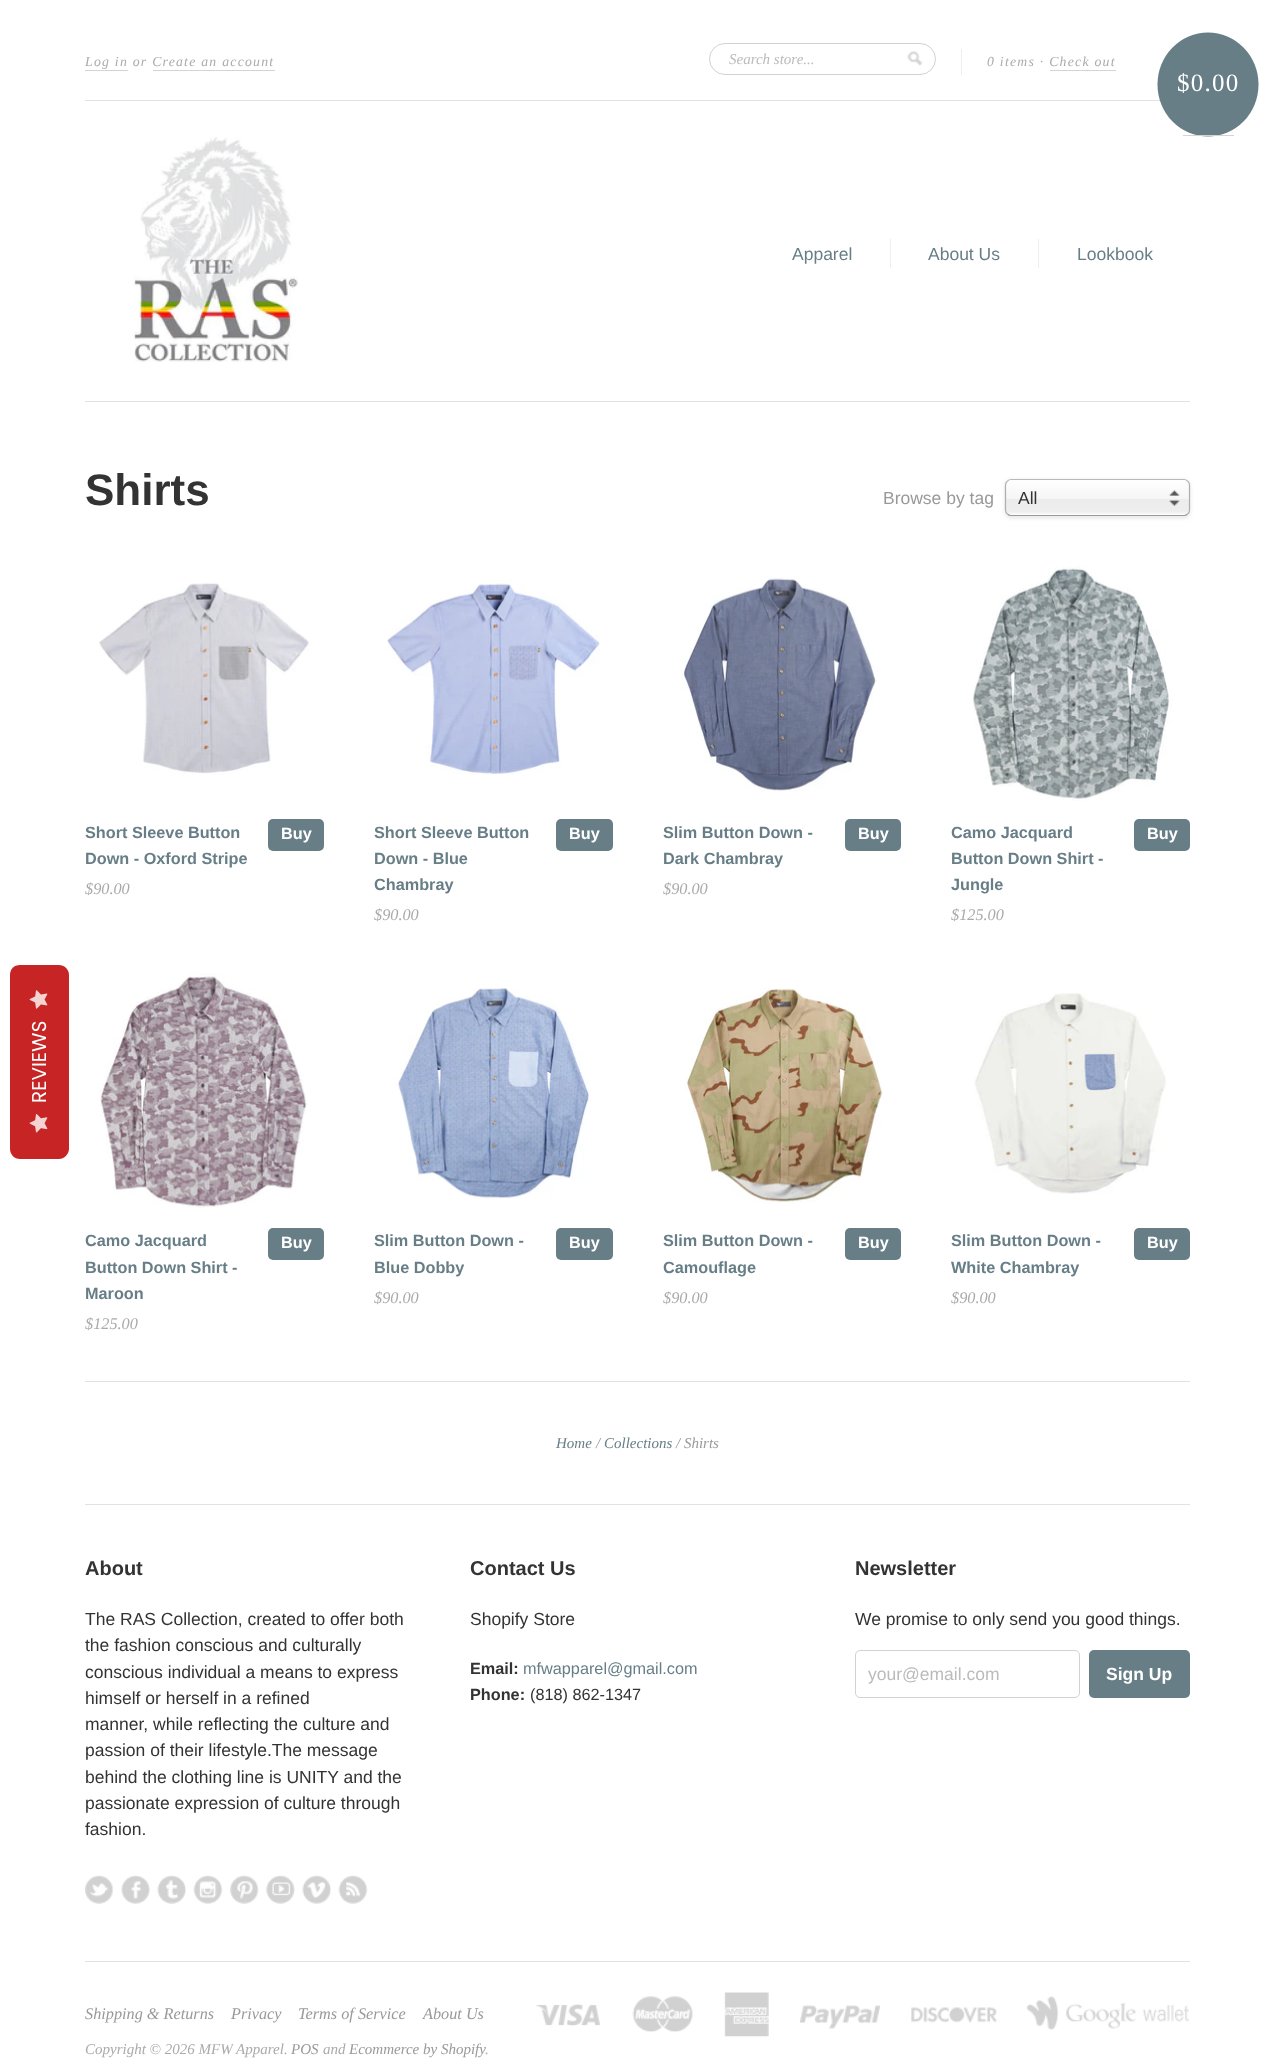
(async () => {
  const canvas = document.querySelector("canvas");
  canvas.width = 1275;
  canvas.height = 2064;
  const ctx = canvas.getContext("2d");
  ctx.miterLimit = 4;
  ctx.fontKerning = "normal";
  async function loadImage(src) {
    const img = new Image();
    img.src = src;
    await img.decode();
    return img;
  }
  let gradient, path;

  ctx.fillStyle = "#ffffff";
  ctx.fillRect(0, 0, 1275, 2064);
  ctx.fillStyle = "#c72525";
  path = new Path2D("M10 1149V975C10 969 14 965 20 965H59C64 965 69 969 69 975V1149C69 1154 64 1159 59 1159H20C14 1159 10 1154 10 1149Z");
  ctx.fill(path);
  ctx.drawImage(await loadImage("img/1.png"), 29, 990, 19, 19);
  ctx.drawImage(await loadImage("img/2.png"), 29, 1114, 19, 19);
  for (const [x, y, w, h, color] of [
    [85, 401, 1105, 1, "#e2e2e2"],
    [85, 100, 1076, 1, "#e2e2e2"],
    [85, 70, 43, 1, "#d4d4d4"],
    [153, 70, 122, 1, "#d4d4d4"],
  ]) {
    ctx.fillStyle = color;
    ctx.fillRect(x, y, w, h);
  }
  ctx.beginPath();
  ctx.roundRect(709.5, 43.5, 226, 31, 15.5);
  ctx.strokeStyle = "#d2d2d2";
  ctx.stroke();
  ctx.drawImage(await loadImage("img/3.png"), 907, 51, 16, 15);
  ctx.fillStyle = "#eeeeee";
  ctx.fillRect(961, 49, 1, 26);
  ctx.fillStyle = "#d4d4d4";
  ctx.fillRect(1050, 70, 66, 1);
  ctx.fillStyle = "#677e87";
  ctx.beginPath();
  ctx.ellipse(1208, 84.5, 50.5, 52, 0, 0, Math.PI * 2);
  ctx.fill();
  ctx.fillStyle = "#d4d4d4";
  ctx.fillRect(1183, 135, 51, 1);
  ctx.drawImage(await loadImage("img/4.png"), 133, 137, 165, 225);
  ctx.fillStyle = "#eeeeee";
  ctx.fillRect(890, 239, 1, 29);
  ctx.fillRect(1038, 239, 1, 29);
  ctx.fillStyle = "rgba(0, 0, 0, 0.1)";
  ctx.filter = "blur(2px)";
  ctx.beginPath();
  ctx.roundRect(1005, 480, 185, 38, 6);
  ctx.fill();
  ctx.filter = "none";
  ctx.save();
  ctx.beginPath();
  ctx.roundRect(1005, 479, 185, 37, 6);
  ctx.clip();
  gradient = ctx.createLinearGradient(1098, 480, 1098, 515);
  gradient.addColorStop(0, "#ffffff");
  gradient.addColorStop(0.53, "#f5f5f5");
  gradient.addColorStop(0.54, "#ececec");
  gradient.addColorStop(0.91, "#eeeeee");
  gradient.addColorStop(1, "#ffffff");
  ctx.fillStyle = gradient;
  ctx.fillRect(1005, 480, 185, 35);
  ctx.restore();
  path = new Path2D("M1007.5 481C1008.5 480 1010 479.5 1011 479.5H1184C1185 479.5 1186.5 480 1187.5 481");
  ctx.strokeStyle = "#b9b9b9";
  ctx.lineWidth = 1.2;
  ctx.stroke(path);
  path = new Path2D("M1187.5 481C1189 482 1189.5 483.5 1189.5 485V510C1189.5 511.5 1189 513 1187.5 514");
  ctx.strokeStyle = "#aeaeae";
  ctx.stroke(path);
  path = new Path2D("M1187.5 514C1186.5 515 1185 515.5 1184 515.5H1011C1010 515.5 1008.5 515 1007.5 514");
  ctx.strokeStyle = "#9b9b9b";
  ctx.stroke(path);
  path = new Path2D("M1007.5 514C1006 513 1005.5 511.5 1005.5 510V485C1005.5 483.5 1006 482 1007.5 481");
  ctx.strokeStyle = "#aeaeae";
  ctx.stroke(path);
  ctx.drawImage(await loadImage("img/5.png"), 1168, 490, 12, 16);
  ctx.drawImage(await loadImage("img/6.png"), 99, 583, 212, 192);
  ctx.fillStyle = "#677e87";
  ctx.beginPath();
  ctx.roundRect(268, 819, 56, 32, 5);
  ctx.fill();
  ctx.drawImage(await loadImage("img/7.png"), 387, 580, 213, 195);
  ctx.beginPath();
  ctx.roundRect(556, 819, 57, 32, 5);
  ctx.fill();
  ctx.drawImage(await loadImage("img/8.png"), 681, 577, 196, 215);
  ctx.beginPath();
  ctx.roundRect(845, 819, 56, 32, 5);
  ctx.fill();
  ctx.drawImage(await loadImage("img/9.png"), 973, 566, 200, 235);
  ctx.beginPath();
  ctx.roundRect(1134, 819, 56, 32, 5);
  ctx.fill();
  ctx.drawImage(await loadImage("img/10.png"), 99, 973, 209, 235);
  ctx.beginPath();
  ctx.roundRect(268, 1228, 56, 32, 5);
  ctx.fill();
  ctx.drawImage(await loadImage("img/11.png"), 394, 988, 197, 211);
  ctx.beginPath();
  ctx.roundRect(556, 1228, 57, 32, 5);
  ctx.fill();
  ctx.drawImage(await loadImage("img/12.png"), 685, 988, 198, 215);
  ctx.beginPath();
  ctx.roundRect(845, 1228, 56, 32, 5);
  ctx.fill();
  ctx.drawImage(await loadImage("img/13.png"), 974, 993, 192, 201);
  ctx.beginPath();
  ctx.roundRect(1134, 1228, 56, 32, 5);
  ctx.fill();
  ctx.fillStyle = "#e2e2e2";
  ctx.fillRect(85, 1381, 1105, 1);
  ctx.fillRect(85, 1504, 1105, 1);
  ctx.drawImage(await loadImage("img/14.png"), 85, 1875, 28, 29);
  ctx.drawImage(await loadImage("img/15.png"), 121, 1875, 29, 29);
  ctx.drawImage(await loadImage("img/16.png"), 157, 1875, 29, 29);
  ctx.drawImage(await loadImage("img/17.png"), 193, 1875, 30, 29);
  ctx.drawImage(await loadImage("img/18.png"), 230, 1875, 29, 29);
  ctx.drawImage(await loadImage("img/19.png"), 266, 1875, 29, 29);
  ctx.drawImage(await loadImage("img/20.png"), 302, 1875, 29, 29);
  ctx.drawImage(await loadImage("img/21.png"), 338, 1875, 30, 29);
  ctx.beginPath();
  ctx.roundRect(855.5, 1650.5, 224, 47, 4.5);
  ctx.strokeStyle = "#d2d2d2";
  ctx.lineWidth = 1;
  ctx.stroke();
  ctx.fillStyle = "#677e87";
  ctx.beginPath();
  ctx.roundRect(1089, 1650, 101, 48, 5);
  ctx.fill();
  ctx.fillStyle = "#e2e2e2";
  ctx.fillRect(85, 1961, 1105, 1);
  ctx.drawImage(await loadImage("img/22.png"), 536, 2004, 64, 22);
  ctx.drawImage(await loadImage("img/23.png"), 632, 1996, 61, 36);
  ctx.drawImage(await loadImage("img/24.png"), 724, 1992, 45, 45);
  ctx.drawImage(await loadImage("img/25.png"), 800, 2005, 80, 24);
  ctx.drawImage(await loadImage("img/26.png"), 911, 2007, 86, 16);
  ctx.drawImage(await loadImage("img/27.png"), 1026, 1996, 163, 34);
  ctx.font = "20px Poppins";
  ctx.fillStyle = "#ffffff";
  ctx.save();
  ctx.translate(46, 1103);
  ctx.rotate(-90 * Math.PI / 180);
  ctx.fillText("REVIEWS", 0, 0);
  ctx.restore();
  ctx.letterSpacing = "1.25px";
  ctx.font = "italic 13.75px Liberation Serif";
  ctx.fillStyle = "#aaaaaa";
  ctx.fillText("Log in or Create an account", 85, 66);
  ctx.letterSpacing = "0px";
  ctx.font = "italic 15px Liberation Serif";
  ctx.fillStyle = "#bbbbbb";
  ctx.fillText("Search store...", 729, 64);
  ctx.letterSpacing = "1.25px";
  ctx.font = "italic 13.75px Liberation Serif";
  ctx.fillStyle = "#aaaaaa";
  ctx.fillText("0 items · Check out", 987, 66);
  ctx.font = "25px Liberation Serif";
  ctx.fillStyle = "#ffffff";
  ctx.fillText("$0.00", 1177, 91);
  ctx.letterSpacing = "0px";
  ctx.font = "17.5px Liberation Sans";
  ctx.fillStyle = "#677e87";
  for (const [text, x, y] of [
    ["Apparel", 792, 260],
    ["About Us", 928, 260],
    ["Lookbook", 1077, 260],
  ]) {
    ctx.fillText(text, x, y);
  }
  ctx.font = "bold 44px Liberation Sans";
  ctx.fillStyle = "#333333";
  ctx.fillText("Shirts", 85, 505);
  ctx.font = "17.5px Liberation Sans";
  ctx.fillStyle = "#999999";
  ctx.fillText("Browse by tag", 883, 504);
  ctx.fillStyle = "#333333";
  ctx.fillText("All", 1018, 504);
  ctx.font = "bold 16.25px Liberation Sans";
  ctx.fillStyle = "#677e87";
  ctx.fillText("Short Sleeve Button", 85, 838);
  ctx.fillText("Down - Oxford Stripe", 85, 864);
  ctx.font = "italic 16.25px Liberation Serif";
  ctx.fillStyle = "#aaaaaa";
  ctx.fillText("$90.00", 85, 894);
  ctx.font = "bold 16.25px Liberation Sans";
  ctx.fillStyle = "#ffffff";
  ctx.fillText("Buy", 281, 839);
  ctx.fillStyle = "#677e87";
  for (const [text, x, y] of [
    ["Short Sleeve Button", 374, 838],
    ["Down - Blue", 374, 864],
    ["Chambray", 374, 890],
  ]) {
    ctx.fillText(text, x, y);
  }
  ctx.font = "italic 16.25px Liberation Serif";
  ctx.fillStyle = "#aaaaaa";
  ctx.fillText("$90.00", 374, 920);
  ctx.font = "bold 16.25px Liberation Sans";
  ctx.fillStyle = "#ffffff";
  ctx.fillText("Buy", 569, 839);
  ctx.fillStyle = "#677e87";
  ctx.fillText("Slim Button Down -", 663, 838);
  ctx.fillText("Dark Chambray", 663, 864);
  ctx.font = "italic 16.25px Liberation Serif";
  ctx.fillStyle = "#aaaaaa";
  ctx.fillText("$90.00", 663, 894);
  ctx.font = "bold 16.25px Liberation Sans";
  ctx.fillStyle = "#ffffff";
  ctx.fillText("Buy", 858, 839);
  ctx.fillStyle = "#677e87";
  for (const [text, x, y] of [
    ["Camo Jacquard", 951, 838],
    ["Button Down Shirt -", 951, 864],
    ["Jungle", 951, 890],
  ]) {
    ctx.fillText(text, x, y);
  }
  ctx.font = "italic 16.25px Liberation Serif";
  ctx.fillStyle = "#aaaaaa";
  ctx.fillText("$125.00", 951, 920);
  ctx.font = "bold 16.25px Liberation Sans";
  ctx.fillStyle = "#ffffff";
  ctx.fillText("Buy", 1147, 839);
  ctx.fillStyle = "#677e87";
  for (const [text, x, y] of [
    ["Camo Jacquard", 85, 1246],
    ["Button Down Shirt -", 85, 1273],
    ["Maroon", 85, 1299],
  ]) {
    ctx.fillText(text, x, y);
  }
  ctx.font = "italic 16.25px Liberation Serif";
  ctx.fillStyle = "#aaaaaa";
  ctx.fillText("$125.00", 85, 1329);
  ctx.font = "bold 16.25px Liberation Sans";
  ctx.fillStyle = "#ffffff";
  ctx.fillText("Buy", 281, 1248);
  ctx.fillStyle = "#677e87";
  ctx.fillText("Slim Button Down -", 374, 1246);
  ctx.fillText("Blue Dobby", 374, 1273);
  ctx.font = "italic 16.25px Liberation Serif";
  ctx.fillStyle = "#aaaaaa";
  ctx.fillText("$90.00", 374, 1303);
  ctx.font = "bold 16.25px Liberation Sans";
  ctx.fillStyle = "#ffffff";
  ctx.fillText("Buy", 569, 1248);
  ctx.fillStyle = "#677e87";
  ctx.fillText("Slim Button Down -", 663, 1246);
  ctx.fillText("Camouflage", 663, 1273);
  ctx.font = "italic 16.25px Liberation Serif";
  ctx.fillStyle = "#aaaaaa";
  ctx.fillText("$90.00", 663, 1303);
  ctx.font = "bold 16.25px Liberation Sans";
  ctx.fillStyle = "#ffffff";
  ctx.fillText("Buy", 858, 1248);
  ctx.fillStyle = "#677e87";
  ctx.fillText("Slim Button Down -", 951, 1246);
  ctx.fillText("White Chambray", 951, 1273);
  ctx.font = "italic 16.25px Liberation Serif";
  ctx.fillStyle = "#aaaaaa";
  ctx.fillText("$90.00", 951, 1303);
  ctx.font = "bold 16.25px Liberation Sans";
  ctx.fillStyle = "#ffffff";
  ctx.fillText("Buy", 1147, 1248);
  ctx.font = "italic 15px Liberation Serif";
  ctx.fillStyle = "#677e87";
  ctx.fillText("Home", 556, 1448);
  ctx.fillStyle = "#999999";
  ctx.fillText("/", 596, 1448);
  ctx.fillStyle = "#677e87";
  ctx.fillText("Collections", 604, 1448);
  ctx.fillStyle = "#999999";
  ctx.fillText("/ Shirts", 676, 1448);
  ctx.font = "bold 20px Liberation Sans";
  ctx.fillStyle = "#333333";
  ctx.fillText("About", 85, 1575);
  ctx.font = "17.5px Liberation Sans";
  for (const [text, x, y] of [
    ["The RAS Collection, created to offer both", 85, 1625],
    ["the fashion conscious and culturally", 85, 1651],
    ["conscious individual a means to express", 85, 1678],
    ["himself or herself in a refined", 85, 1704],
    ["manner, while reflecting the culture and", 85, 1730],
    ["passion of their lifestyle.The message", 85, 1756],
    ["behind the clothing line is UNITY and the", 85, 1783],
    ["passionate expression of culture through", 85, 1809],
    ["fashion.", 85, 1835],
  ]) {
    ctx.fillText(text, x, y);
  }
  ctx.font = "bold 20px Liberation Sans";
  ctx.fillText("Contact Us", 470, 1575);
  ctx.font = "17.5px Liberation Sans";
  ctx.fillText("Shopify Store", 470, 1625);
  ctx.font = "bold 16.25px Liberation Sans";
  ctx.fillText("Email:", 470, 1674);
  ctx.font = "16.25px Liberation Sans";
  ctx.fillStyle = "#677e87";
  ctx.fillText("mfwapparel@gmail.com", 523, 1674);
  ctx.font = "bold 16.25px Liberation Sans";
  ctx.fillStyle = "#333333";
  ctx.fillText("Phone:", 470, 1700);
  ctx.font = "16.25px Liberation Sans";
  ctx.fillText("(818) 862-1347", 530, 1700);
  ctx.font = "bold 20px Liberation Sans";
  ctx.fillText("Newsletter", 855, 1575);
  ctx.font = "17.5px Liberation Sans";
  ctx.fillText("We promise to only send you good things.", 855, 1625);
  ctx.fillStyle = "#bbbbbb";
  ctx.fillText("your@email.com", 868, 1680);
  ctx.font = "bold 17.5px Liberation Sans";
  ctx.fillStyle = "#ffffff";
  ctx.fillText("Sign Up", 1106, 1680);
  ctx.font = "italic 16.25px Liberation Serif";
  ctx.fillStyle = "#999999";
  for (const [text, x, y] of [
    ["Shipping & Returns", 85, 2019],
    ["Privacy", 231, 2019],
    ["Terms of Service", 298, 2019],
    ["About Us", 423, 2019],
  ]) {
    ctx.fillText(text, x, y);
  }
  ctx.font = "italic 15px Liberation Serif";
  ctx.fillStyle = "#aaaaaa";
  ctx.fillText("Copyright © 2026 MFW Apparel.", 85, 2054);
  ctx.fillStyle = "#999999";
  ctx.fillText("POS", 291, 2054);
  ctx.fillStyle = "#aaaaaa";
  ctx.fillText("and", 323, 2054);
  ctx.fillStyle = "#999999";
  ctx.fillText("Ecommerce by Shopify", 349, 2054);
  ctx.fillStyle = "#aaaaaa";
  ctx.fillText(".", 485, 2054);
})();
